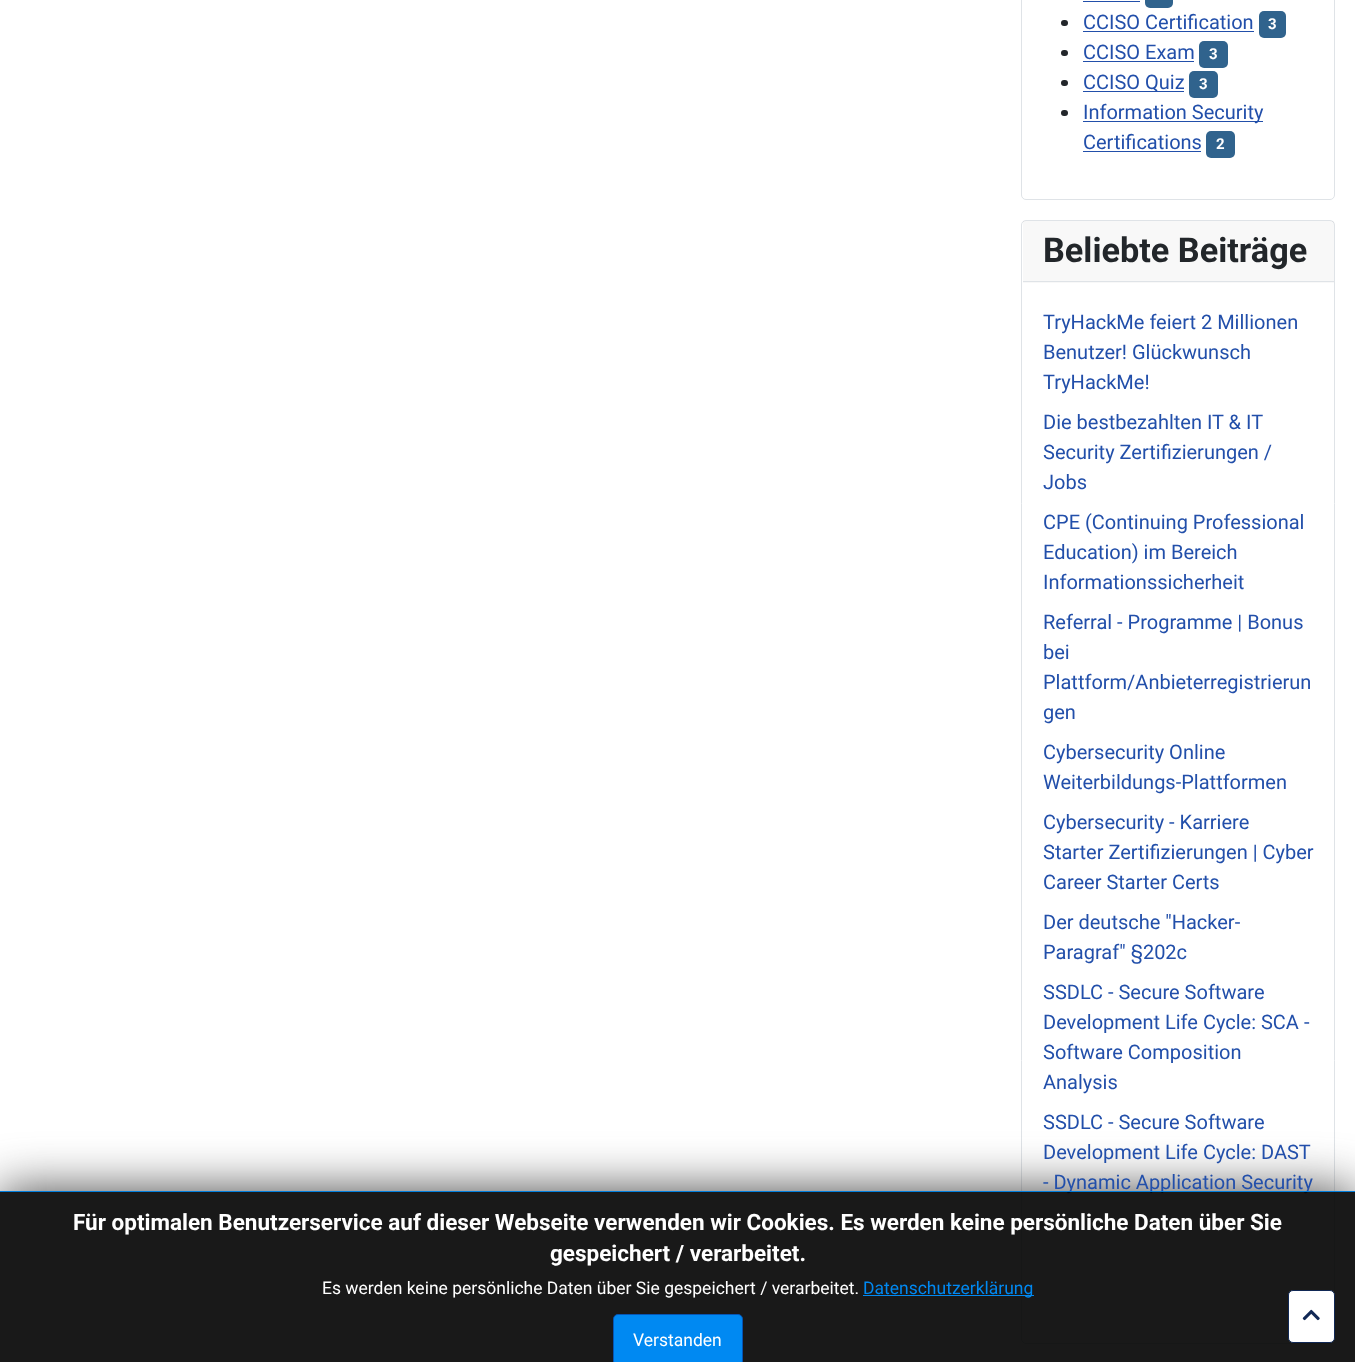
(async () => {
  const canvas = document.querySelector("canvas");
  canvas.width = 1355;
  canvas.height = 1362;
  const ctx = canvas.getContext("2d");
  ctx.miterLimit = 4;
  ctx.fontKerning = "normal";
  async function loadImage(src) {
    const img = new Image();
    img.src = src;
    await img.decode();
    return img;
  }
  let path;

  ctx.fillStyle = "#ffffff";
  ctx.fillRect(0, 0, 1355, 1362);
  ctx.beginPath();
  ctx.roundRect(1021.5, -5.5, 313, 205, 4.5);
  ctx.strokeStyle = "#dfe3e7";
  ctx.stroke();
  ctx.fillStyle = "#224faa";
  ctx.fillRect(1083, 1, 57, 1);
  ctx.fillStyle = "#30638d";
  ctx.beginPath();
  ctx.roundRect(1145, -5, 28, 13, 5);
  ctx.fill();
  ctx.fillStyle = "#22262a";
  ctx.beginPath();
  ctx.roundRect(1061, 20, 7, 6, 3);
  ctx.fill();
  ctx.fillStyle = "#224faa";
  ctx.fillRect(1083, 31, 171, 1);
  ctx.fillStyle = "#30638d";
  ctx.beginPath();
  ctx.roundRect(1259, 11, 27, 27, 5);
  ctx.fill();
  ctx.fillStyle = "#22262a";
  ctx.beginPath();
  ctx.roundRect(1061, 50, 7, 6, 3);
  ctx.fill();
  ctx.fillStyle = "#224faa";
  ctx.fillRect(1083, 61, 111, 1);
  ctx.fillStyle = "#30638d";
  ctx.beginPath();
  ctx.roundRect(1199, 41, 29, 27, 5);
  ctx.fill();
  ctx.fillStyle = "#22262a";
  ctx.beginPath();
  ctx.roundRect(1061, 80, 7, 6, 3);
  ctx.fill();
  ctx.fillStyle = "#224faa";
  ctx.fillRect(1083, 91, 101, 1);
  ctx.fillStyle = "#30638d";
  ctx.beginPath();
  ctx.roundRect(1189, 71, 29, 27, 5);
  ctx.fill();
  ctx.fillStyle = "#22262a";
  ctx.beginPath();
  ctx.roundRect(1061, 110, 7, 6, 3);
  ctx.fill();
  ctx.fillStyle = "#224faa";
  ctx.fillRect(1083, 121, 180, 1);
  ctx.fillRect(1083, 151, 118, 1);
  ctx.fillStyle = "#30638d";
  ctx.beginPath();
  ctx.roundRect(1206, 131, 29, 27, 5);
  ctx.fill();
  ctx.beginPath();
  ctx.roundRect(1021.5, 220.5, 313, 1123, 4.5);
  ctx.stroke();
  ctx.fillStyle = "rgba(34, 38, 42, 0.03)";
  ctx.fillRect(1023, 221, 311, 62);
  ctx.fillStyle = "#dfe3e7";
  ctx.fillRect(1023, 281, 311, 1);
  ctx.save();
  path = new Path2D("M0 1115H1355V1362H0ZM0 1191H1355V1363H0Z");
  ctx.clip(path, "evenodd");
  ctx.fillStyle = "#444444";
  ctx.filter = "blur(25px)";
  ctx.beginPath();
  ctx.rect(0, 1191, 1355, 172);
  ctx.fill();
  ctx.filter = "none";
  ctx.restore();
  ctx.font = "20px Roboto";
  ctx.fillStyle = "#224faa";
  ctx.fillText("CCISO Certification", 1083, 29);
  ctx.font = "bold 15px Roboto";
  ctx.fillStyle = "#ffffff";
  ctx.fillText("3", 1268, 29);
  ctx.font = "20px Roboto";
  ctx.fillStyle = "#224faa";
  ctx.fillText("CCISO Exam", 1083, 59);
  ctx.font = "bold 15px Roboto";
  ctx.fillStyle = "#ffffff";
  ctx.fillText("3", 1209, 59);
  ctx.font = "20px Roboto";
  ctx.fillStyle = "#224faa";
  ctx.fillText("CCISO Quiz", 1083, 89);
  ctx.font = "bold 15px Roboto";
  ctx.fillStyle = "#ffffff";
  ctx.fillText("3", 1199, 89);
  ctx.font = "20px Roboto";
  ctx.fillStyle = "#224faa";
  ctx.fillText("Information Security", 1083, 119);
  ctx.fillText("Certifications", 1083, 149);
  ctx.font = "bold 15px Roboto";
  ctx.fillStyle = "#ffffff";
  ctx.fillText("2", 1216, 149);
  ctx.font = "bold 34.25px Roboto";
  ctx.fillStyle = "#22262a";
  ctx.fillText("Beliebte Beiträge", 1043, 262);
  ctx.font = "20px Roboto";
  ctx.fillStyle = "#224faa";
  for (const [text, x, y] of [
    ["TryHackMe feiert 2 Millionen", 1043, 329],
    ["Benutzer! Glückwunsch", 1043, 359],
    ["TryHackMe!", 1043, 389],
    ["Die bestbezahlten IT & IT", 1043, 429],
    ["Security Zertifizierungen /", 1043, 459],
    ["Jobs", 1043, 489],
    ["CPE (Continuing Professional", 1043, 529],
    ["Education) im Bereich", 1043, 559],
    ["Informationssicherheit", 1043, 589],
    ["Referral - Programme | Bonus", 1043, 629],
    ["bei", 1043, 659],
    ["Plattform/Anbieterregistrierun", 1043, 689],
    ["gen", 1043, 719],
    ["Cybersecurity Online", 1043, 759],
    ["Weiterbildungs-Plattformen", 1043, 789],
    ["Cybersecurity - Karriere", 1043, 829],
    ["Starter Zertifizierungen | Cyber", 1043, 859],
    ["Career Starter Certs", 1043, 889],
    ["Der deutsche \"Hacker-", 1043, 929],
    ["Paragraf\" §202c", 1043, 959],
    ["SSDLC - Secure Software", 1043, 999],
    ["Development Life Cycle: SCA -", 1043, 1029],
    ["Software Composition", 1043, 1059],
    ["Analysis", 1043, 1089],
    ["SSDLC - Secure Software", 1043, 1129],
    ["Development Life Cycle: DAST", 1043, 1159],
    ["- Dynamic Application Security", 1043, 1189],
  ]) {
    ctx.fillText(text, x, y);
  }
  ctx.fillStyle = "rgba(0, 0, 0, 0.9)";
  ctx.fillRect(0, 1191, 1355, 171);
  ctx.fillStyle = "rgba(0, 137, 242, 0.9)";
  ctx.fillRect(0, 1191, 1355, 1);
  ctx.font = "bold 22.5px Roboto";
  ctx.fillStyle = "#ffffff";
  ctx.fillText("Für optimalen Benutzerservice auf dieser Webseite verwenden wir Cookies. Es werden keine persönliche Daten über Sie", 73, 1230);
  ctx.fillText("gespeichert / verarbeitet.", 550, 1261);
  ctx.font = "17.5px Roboto";
  ctx.fillText("Es werden keine persönliche Daten über Sie gespeichert / verarbeitet.", 322, 1294);
  ctx.fillStyle = "#0089f2";
  ctx.fillRect(863, 1295, 171, 1);
  ctx.fillText("Datenschutzerklärung", 863, 1294);
  ctx.beginPath();
  ctx.roundRect(613.5, 1314.5, 129, 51, 4.5);
  ctx.fill();
  ctx.strokeStyle = "#0654b3";
  ctx.stroke();
  ctx.fillStyle = "#ffffff";
  ctx.fillText("Verstanden", 633, 1346);
  ctx.beginPath();
  ctx.roundRect(1288.5, 1290.5, 46, 52, 4.5);
  ctx.fill();
  ctx.strokeStyle = "#112855";
  ctx.stroke();
  ctx.drawImage(await loadImage("img/1.png"), 1302, 1309, 18, 12);
})();
